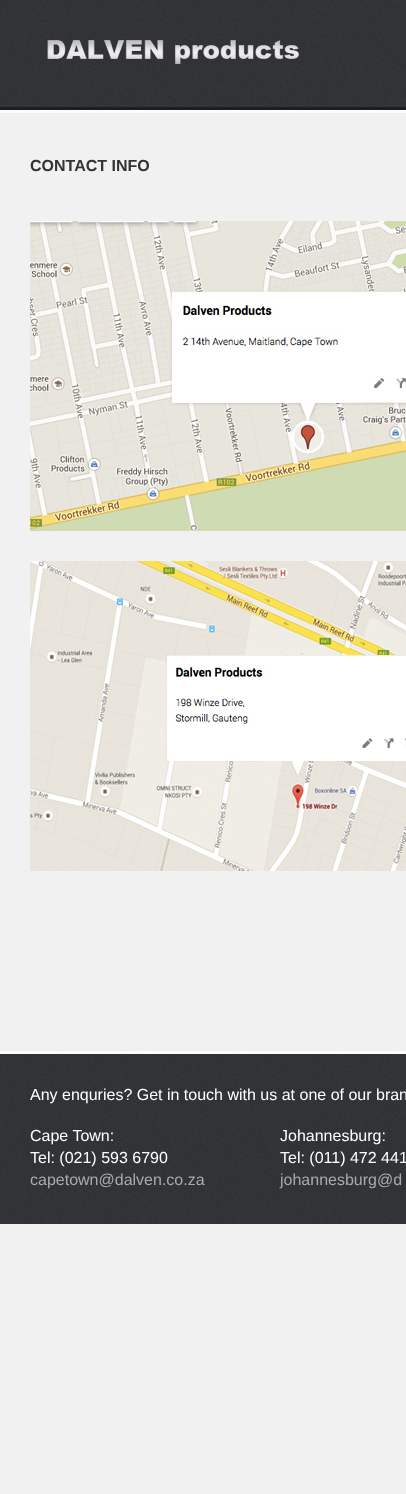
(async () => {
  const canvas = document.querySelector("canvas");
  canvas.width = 406;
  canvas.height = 1494;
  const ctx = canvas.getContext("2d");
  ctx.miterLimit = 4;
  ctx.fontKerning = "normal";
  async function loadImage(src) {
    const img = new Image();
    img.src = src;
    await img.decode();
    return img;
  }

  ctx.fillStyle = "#f1f1f1";
  ctx.fillRect(0, 0, 406, 1494);
  ctx.drawImage(await loadImage("img/1.png"), 0, 0, 406, 107);
  ctx.fillStyle = "#1c1e21";
  ctx.fillRect(0, 107, 406, 3);
  ctx.drawImage(await loadImage("img/2.png"), 47, 40, 252, 24);
  ctx.fillStyle = "#fcfcfd";
  ctx.fillRect(0, 110, 406, 3);
  ctx.fillRect(0, 1051, 406, 3);
  ctx.drawImage(await loadImage("img/3.png"), 30, 221, 376, 310);
  ctx.drawImage(await loadImage("img/4.png"), 30, 561, 376, 310);
  ctx.drawImage(await loadImage("img/5.png"), 0, 1054, 406, 170);
  ctx.font = "bold 16px Liberation Sans";
  ctx.fillStyle = "#343434";
  ctx.fillText("CONTACT INFO", 30, 171);
  ctx.font = "16px Liberation Sans";
  ctx.fillStyle = "#ffffff";
  for (const [text, x, y] of [
    ["Any enquries? Get in touch with us at one of our bran", 30, 1100],
    ["Cape Town:", 30, 1141],
    ["Tel: (021) 593 6790", 30, 1163],
  ]) {
    ctx.fillText(text, x, y);
  }
  ctx.fillStyle = "#aaaaaa";
  ctx.fillText("capetown@dalven.co.za", 30, 1185);
  ctx.fillStyle = "#ffffff";
  ctx.fillText("Johannesburg:", 280, 1141);
  ctx.fillText("Tel: (011) 472 441", 280, 1163);
  ctx.fillStyle = "#aaaaaa";
  ctx.fillText("johannesburg@d", 280, 1185);
})();
